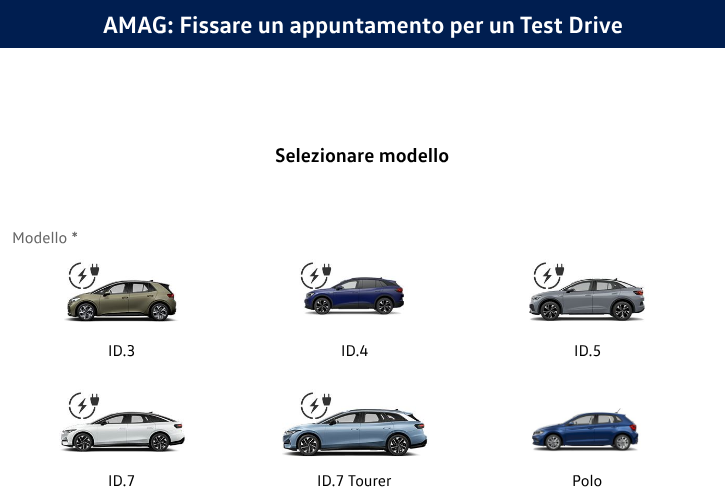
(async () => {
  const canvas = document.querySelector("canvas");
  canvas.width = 725;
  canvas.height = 499;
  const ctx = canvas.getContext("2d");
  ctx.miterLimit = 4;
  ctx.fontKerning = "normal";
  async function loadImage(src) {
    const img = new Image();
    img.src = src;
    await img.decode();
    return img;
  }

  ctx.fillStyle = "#ffffff";
  ctx.fillRect(0, 0, 725, 499);
  ctx.fillStyle = "#001e50";
  ctx.fillRect(0, 0, 725, 48);
  ctx.drawImage(await loadImage("img/1.png"), 64, 259, 115, 63);
  ctx.drawImage(await loadImage("img/2.png"), 299, 259, 109, 57);
  ctx.drawImage(await loadImage("img/3.png"), 529, 259, 120, 63);
  ctx.drawImage(await loadImage("img/4.png"), 59, 389, 129, 63);
  ctx.drawImage(await loadImage("img/5.png"), 282, 389, 147, 68);
  ctx.drawImage(await loadImage("img/6.png"), 531, 408, 110, 44);
  ctx.font = "bold 24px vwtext";
  ctx.fillStyle = "#ffffff";
  ctx.fillText("AMAG: Fissare un appuntamento per un Test Drive", 103, 33);
  ctx.font = "bold 20px vwtext";
  ctx.fillStyle = "#000000";
  ctx.fillText("Selezionare modello", 275, 162);
  ctx.font = "16px vwtext";
  ctx.fillStyle = "#666666";
  ctx.fillText("Modello *", 12, 243);
  ctx.fillStyle = "#000000";
  for (const [text, x, y] of [
    ["ID.3", 108, 356],
    ["ID.4", 341, 356],
    ["ID.5", 574, 356],
    ["ID.7", 108, 486],
    ["ID.7 Tourer", 317, 486],
    ["Polo", 572, 486],
  ]) {
    ctx.fillText(text, x, y);
  }
})();
